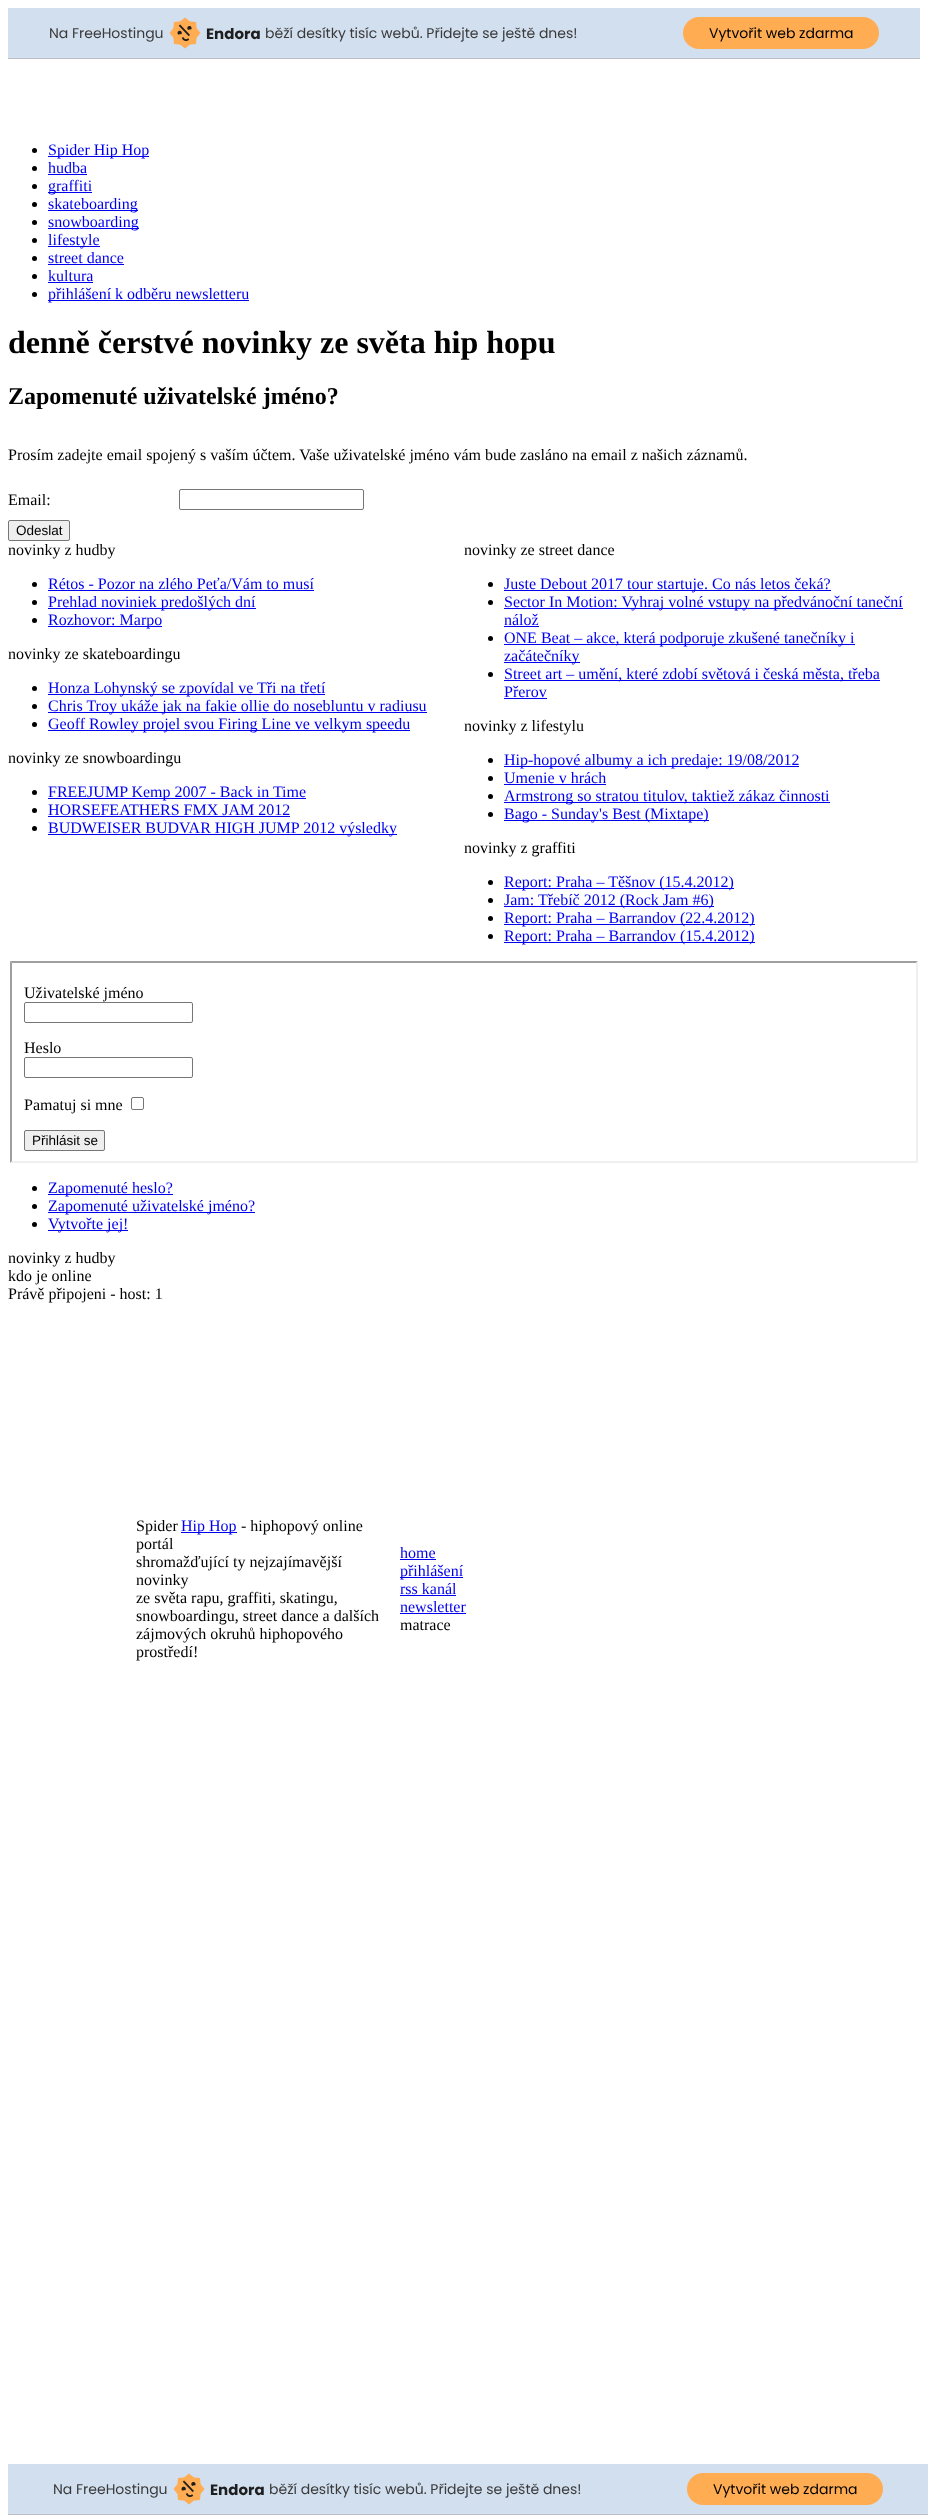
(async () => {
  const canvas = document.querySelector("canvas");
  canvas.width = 928;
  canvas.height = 2515;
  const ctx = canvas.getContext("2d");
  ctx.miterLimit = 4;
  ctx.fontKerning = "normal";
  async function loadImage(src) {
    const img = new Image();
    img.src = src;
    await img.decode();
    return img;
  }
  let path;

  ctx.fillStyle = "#ffffff";
  ctx.fillRect(0, 0, 928, 2515);
  ctx.fillStyle = "#d2dfef";
  ctx.fillRect(8, 8, 912, 50);
  ctx.fillStyle = "#bebfc4";
  ctx.fillRect(8, 58, 912, 1);
  ctx.drawImage(await loadImage("img/1.png"), 169, 17, 32, 32);
  ctx.fillStyle = "#ffac52";
  ctx.beginPath();
  ctx.roundRect(683, 17, 196, 32, 16);
  ctx.fill();
  ctx.fillStyle = "#000000";
  ctx.beginPath();
  ctx.arc(34.5, 150.5, 2.5, 0, Math.PI * 2);
  ctx.fill();
  ctx.fillStyle = "#0000ee";
  ctx.fillRect(48, 156, 101, 1);
  ctx.fillStyle = "#000000";
  ctx.beginPath();
  ctx.arc(34.5, 168.5, 2.5, 0, Math.PI * 2);
  ctx.fill();
  ctx.fillStyle = "#0000ee";
  ctx.fillRect(48, 174, 39, 1);
  ctx.fillStyle = "#000000";
  ctx.beginPath();
  ctx.arc(34.5, 186.5, 2.5, 0, Math.PI * 2);
  ctx.fill();
  ctx.fillStyle = "#0000ee";
  ctx.fillRect(48, 192, 44, 1);
  ctx.fillStyle = "#000000";
  ctx.beginPath();
  ctx.arc(34.5, 204.5, 2.5, 0, Math.PI * 2);
  ctx.fill();
  ctx.fillStyle = "#0000ee";
  ctx.fillRect(48, 210, 90, 1);
  ctx.fillStyle = "#000000";
  ctx.beginPath();
  ctx.arc(34.5, 222.5, 2.5, 0, Math.PI * 2);
  ctx.fill();
  ctx.fillStyle = "#0000ee";
  ctx.fillRect(48, 228, 91, 1);
  ctx.fillStyle = "#000000";
  ctx.beginPath();
  ctx.arc(34.5, 240.5, 2.5, 0, Math.PI * 2);
  ctx.fill();
  ctx.fillStyle = "#0000ee";
  ctx.fillRect(48, 246, 52, 1);
  ctx.fillStyle = "#000000";
  ctx.beginPath();
  ctx.arc(34.5, 258.5, 2.5, 0, Math.PI * 2);
  ctx.fill();
  ctx.fillStyle = "#0000ee";
  ctx.fillRect(48, 264, 76, 1);
  ctx.fillStyle = "#000000";
  ctx.beginPath();
  ctx.arc(34.5, 276.5, 2.5, 0, Math.PI * 2);
  ctx.fill();
  ctx.fillStyle = "#0000ee";
  ctx.fillRect(48, 282, 45, 1);
  ctx.fillStyle = "#000000";
  ctx.beginPath();
  ctx.arc(34.5, 294.5, 2.5, 0, Math.PI * 2);
  ctx.fill();
  ctx.fillStyle = "#0000ee";
  ctx.fillRect(48, 300, 201, 1);
  ctx.beginPath();
  ctx.roundRect(179.5, 489.5, 184, 20, 1.5);
  ctx.strokeStyle = "#767676";
  ctx.stroke();
  ctx.fillStyle = "#efefef";
  ctx.beginPath();
  ctx.roundRect(8.5, 520.5, 61, 20, 1.5);
  ctx.fill();
  ctx.stroke();
  ctx.fillStyle = "#000000";
  ctx.beginPath();
  ctx.arc(34.5, 584.5, 2.5, 0, Math.PI * 2);
  ctx.fill();
  ctx.fillStyle = "#0000ee";
  ctx.fillRect(48, 590, 266, 1);
  ctx.fillStyle = "#000000";
  ctx.beginPath();
  ctx.arc(34.5, 602.5, 2.5, 0, Math.PI * 2);
  ctx.fill();
  ctx.fillStyle = "#0000ee";
  ctx.fillRect(48, 608, 208, 1);
  ctx.fillStyle = "#000000";
  ctx.beginPath();
  ctx.arc(34.5, 620.5, 2.5, 0, Math.PI * 2);
  ctx.fill();
  ctx.fillStyle = "#0000ee";
  ctx.fillRect(48, 626, 114, 1);
  ctx.fillStyle = "#000000";
  ctx.beginPath();
  ctx.arc(34.5, 688.5, 2.5, 0, Math.PI * 2);
  ctx.fill();
  ctx.fillStyle = "#0000ee";
  ctx.fillRect(48, 694, 277, 1);
  ctx.fillStyle = "#000000";
  ctx.beginPath();
  ctx.arc(34.5, 706.5, 2.5, 0, Math.PI * 2);
  ctx.fill();
  ctx.fillStyle = "#0000ee";
  ctx.fillRect(48, 712, 379, 1);
  ctx.fillStyle = "#000000";
  ctx.beginPath();
  ctx.arc(34.5, 724.5, 2.5, 0, Math.PI * 2);
  ctx.fill();
  ctx.fillStyle = "#0000ee";
  ctx.fillRect(48, 730, 362, 1);
  ctx.fillStyle = "#000000";
  ctx.beginPath();
  ctx.arc(34.5, 792.5, 2.5, 0, Math.PI * 2);
  ctx.fill();
  ctx.fillStyle = "#0000ee";
  ctx.fillRect(48, 798, 258, 1);
  ctx.fillStyle = "#000000";
  ctx.beginPath();
  ctx.arc(34.5, 810.5, 2.5, 0, Math.PI * 2);
  ctx.fill();
  ctx.fillStyle = "#0000ee";
  ctx.fillRect(48, 816, 242, 1);
  ctx.fillStyle = "#000000";
  ctx.beginPath();
  ctx.arc(34.5, 828.5, 2.5, 0, Math.PI * 2);
  ctx.fill();
  ctx.fillStyle = "#0000ee";
  ctx.fillRect(48, 834, 349, 1);
  ctx.fillStyle = "#000000";
  ctx.beginPath();
  ctx.arc(490.5, 584.5, 2.5, 0, Math.PI * 2);
  ctx.fill();
  ctx.fillStyle = "#0000ee";
  ctx.fillRect(504, 590, 327, 1);
  ctx.fillStyle = "#000000";
  ctx.beginPath();
  ctx.arc(490.5, 602.5, 2.5, 0, Math.PI * 2);
  ctx.fill();
  ctx.fillStyle = "#0000ee";
  ctx.fillRect(504, 608, 399, 1);
  ctx.fillRect(504, 626, 35, 1);
  ctx.fillStyle = "#000000";
  ctx.beginPath();
  ctx.arc(490.5, 638.5, 2.5, 0, Math.PI * 2);
  ctx.fill();
  ctx.fillStyle = "#0000ee";
  ctx.fillRect(504, 644, 351, 1);
  ctx.fillRect(504, 662, 76, 1);
  ctx.fillStyle = "#000000";
  ctx.beginPath();
  ctx.arc(490.5, 674.5, 2.5, 0, Math.PI * 2);
  ctx.fill();
  ctx.fillStyle = "#0000ee";
  ctx.fillRect(504, 680, 376, 1);
  ctx.fillRect(504, 698, 43, 1);
  ctx.fillStyle = "#000000";
  ctx.beginPath();
  ctx.arc(490.5, 760.5, 2.5, 0, Math.PI * 2);
  ctx.fill();
  ctx.fillStyle = "#0000ee";
  ctx.fillRect(504, 766, 295, 1);
  ctx.fillStyle = "#000000";
  ctx.beginPath();
  ctx.arc(490.5, 778.5, 2.5, 0, Math.PI * 2);
  ctx.fill();
  ctx.fillStyle = "#0000ee";
  ctx.fillRect(504, 784, 102, 1);
  ctx.fillStyle = "#000000";
  ctx.beginPath();
  ctx.arc(490.5, 796.5, 2.5, 0, Math.PI * 2);
  ctx.fill();
  ctx.fillStyle = "#0000ee";
  ctx.fillRect(504, 802, 326, 1);
  ctx.fillStyle = "#000000";
  ctx.beginPath();
  ctx.arc(490.5, 814.5, 2.5, 0, Math.PI * 2);
  ctx.fill();
  ctx.fillStyle = "#0000ee";
  ctx.fillRect(504, 820, 205, 1);
  ctx.fillStyle = "#000000";
  ctx.beginPath();
  ctx.arc(490.5, 882.5, 2.5, 0, Math.PI * 2);
  ctx.fill();
  ctx.fillStyle = "#0000ee";
  ctx.fillRect(504, 888, 230, 1);
  ctx.fillStyle = "#000000";
  ctx.beginPath();
  ctx.arc(490.5, 900.5, 2.5, 0, Math.PI * 2);
  ctx.fill();
  ctx.fillStyle = "#0000ee";
  ctx.fillRect(504, 906, 210, 1);
  ctx.fillStyle = "#000000";
  ctx.beginPath();
  ctx.arc(490.5, 918.5, 2.5, 0, Math.PI * 2);
  ctx.fill();
  ctx.fillStyle = "#0000ee";
  ctx.fillRect(504, 924, 251, 1);
  ctx.fillStyle = "#000000";
  ctx.beginPath();
  ctx.arc(490.5, 936.5, 2.5, 0, Math.PI * 2);
  ctx.fill();
  ctx.fillStyle = "#0000ee";
  ctx.fillRect(504, 942, 251, 1);
  ctx.fillStyle = "#9f9f9f";
  path = new Path2D("M10 961H918L916 963H12Z");
  ctx.fill(path);
  ctx.fillStyle = "#efefef";
  path = new Path2D("M918 961V1163L916 1161V963Z");
  ctx.fill(path);
  path = new Path2D("M918 1163H10L12 1161H916Z");
  ctx.fill(path);
  ctx.fillStyle = "#9f9f9f";
  path = new Path2D("M10 1163V961L12 963V1161Z");
  ctx.fill(path);
  ctx.beginPath();
  ctx.roundRect(24.5, 1002.5, 168, 20, 1.5);
  ctx.stroke();
  ctx.beginPath();
  ctx.roundRect(24.5, 1057.5, 168, 20, 1.5);
  ctx.stroke();
  ctx.beginPath();
  ctx.roundRect(131.5, 1097.5, 12, 12, 1.5);
  ctx.stroke();
  ctx.fillStyle = "#efefef";
  ctx.beginPath();
  ctx.roundRect(24.5, 1130.5, 80, 20, 1.5);
  ctx.fill();
  ctx.stroke();
  ctx.fillStyle = "#000000";
  ctx.beginPath();
  ctx.arc(34.5, 1188.5, 2.5, 0, Math.PI * 2);
  ctx.fill();
  ctx.fillStyle = "#0000ee";
  ctx.fillRect(48, 1194, 125, 1);
  ctx.fillStyle = "#000000";
  ctx.beginPath();
  ctx.arc(34.5, 1206.5, 2.5, 0, Math.PI * 2);
  ctx.fill();
  ctx.fillStyle = "#0000ee";
  ctx.fillRect(48, 1212, 207, 1);
  ctx.fillStyle = "#000000";
  ctx.beginPath();
  ctx.arc(34.5, 1224.5, 2.5, 0, Math.PI * 2);
  ctx.fill();
  for (const [x, y, w, h, color] of [
    [48, 1230, 80, 1, "#0000ee"],
    [181, 1532, 56, 1, "#0000ee"],
    [400, 1559, 36, 1, "#0000ee"],
    [400, 1577, 63, 1, "#0000ee"],
    [400, 1595, 56, 1, "#0000ee"],
    [400, 1613, 66, 1, "#0000ee"],
    [8, 2464, 920, 50, "#d2dfef"],
    [8, 2514, 920, 1, "#bebfc4"],
  ]) {
    ctx.fillStyle = color;
    ctx.fillRect(x, y, w, h);
  }
  ctx.drawImage(await loadImage("img/1.png"), 173, 2473, 32, 32);
  ctx.fillStyle = "#ffac52";
  ctx.beginPath();
  ctx.roundRect(687, 2473, 196, 32, 16);
  ctx.fill();
  ctx.font = "14px Poppins";
  ctx.fillStyle = "#3a3a3a";
  ctx.fillText("Na FreeHostingu", 49, 38);
  ctx.font = "bold 15px Poppins";
  ctx.fillStyle = "#1e1e1e";
  ctx.fillText("Endora", 206, 39);
  ctx.font = "14px Poppins";
  ctx.fillStyle = "#3a3a3a";
  ctx.fillText("běží desítky tisíc webů. Přidejte se ještě dnes!", 265, 38);
  ctx.fillStyle = "#000000";
  ctx.fillText("Vytvořit web zdarma", 709, 38);
  ctx.font = "16px Liberation Serif";
  ctx.fillStyle = "#0000ee";
  for (const [text, x, y] of [
    ["Spider Hip Hop", 48, 155],
    ["hudba", 48, 173],
    ["graffiti", 48, 191],
    ["skateboarding", 48, 209],
    ["snowboarding", 48, 227],
    ["lifestyle", 48, 245],
    ["street dance", 48, 263],
    ["kultura", 48, 281],
    ["přihlášení k odběru newsletteru", 48, 299],
  ]) {
    ctx.fillText(text, x, y);
  }
  ctx.font = "bold 32px Liberation Serif";
  ctx.fillStyle = "#000000";
  ctx.fillText("denně čerstvé novinky ze světa hip hopu", 8, 353);
  ctx.font = "bold 24px Liberation Serif";
  ctx.fillText("Zapomenuté uživatelské jméno?", 8, 404);
  ctx.font = "16px Liberation Serif";
  ctx.fillText("Prosím zadejte email spojený s vaším účtem. Vaše uživatelské jméno vám bude zasláno na email z našich záznamů.", 8, 460);
  ctx.fillText("Email:", 8, 505);
  ctx.font = "13.5px Liberation Sans";
  ctx.fillText("Odeslat", 16, 535);
  ctx.font = "16px Liberation Serif";
  ctx.fillText("novinky z hudby", 8, 555);
  ctx.fillStyle = "#0000ee";
  for (const [text, x, y] of [
    ["Rétos - Pozor na zlého Peťa/Vám to musí", 48, 589],
    ["Prehlad noviniek predošlých dní", 48, 607],
    ["Rozhovor: Marpo", 48, 625],
  ]) {
    ctx.fillText(text, x, y);
  }
  ctx.fillStyle = "#000000";
  ctx.fillText("novinky ze skateboardingu", 8, 659);
  ctx.fillStyle = "#0000ee";
  for (const [text, x, y] of [
    ["Honza Lohynský se zpovídal ve Tři na třetí", 48, 693],
    ["Chris Troy ukáže jak na fakie ollie do nosebluntu v radiusu", 48, 711],
    ["Geoff Rowley projel svou Firing Line ve velkym speedu", 48, 729],
  ]) {
    ctx.fillText(text, x, y);
  }
  ctx.fillStyle = "#000000";
  ctx.fillText("novinky ze snowboardingu", 8, 763);
  ctx.fillStyle = "#0000ee";
  for (const [text, x, y] of [
    ["FREEJUMP Kemp 2007 - Back in Time", 48, 797],
    ["HORSEFEATHERS FMX JAM 2012", 48, 815],
    ["BUDWEISER BUDVAR HIGH JUMP 2012 výsledky", 48, 833],
  ]) {
    ctx.fillText(text, x, y);
  }
  ctx.fillStyle = "#000000";
  ctx.fillText("novinky ze street dance", 464, 555);
  ctx.fillStyle = "#0000ee";
  for (const [text, x, y] of [
    ["Juste Debout 2017 tour startuje. Co nás letos čeká?", 504, 589],
    ["Sector In Motion: Vyhraj volné vstupy na předvánoční taneční", 504, 607],
    ["nálož", 504, 625],
    ["ONE Beat – akce, která podporuje zkušené tanečníky i", 504, 643],
    ["začátečníky", 504, 661],
    ["Street art – umění, které zdobí světová i česká města, třeba", 504, 679],
    ["Přerov", 504, 697],
  ]) {
    ctx.fillText(text, x, y);
  }
  ctx.fillStyle = "#000000";
  ctx.fillText("novinky z lifestylu", 464, 731);
  ctx.fillStyle = "#0000ee";
  for (const [text, x, y] of [
    ["Hip-hopové albumy a ich predaje: 19/08/2012", 504, 765],
    ["Umenie v hrách", 504, 783],
    ["Armstrong so stratou titulov, taktiež zákaz činnosti", 504, 801],
    ["Bago - Sunday's Best (Mixtape)", 504, 819],
  ]) {
    ctx.fillText(text, x, y);
  }
  ctx.fillStyle = "#000000";
  ctx.fillText("novinky z graffiti", 464, 853);
  ctx.fillStyle = "#0000ee";
  for (const [text, x, y] of [
    ["Report: Praha – Těšnov (15.4.2012)", 504, 887],
    ["Jam: Třebíč 2012 (Rock Jam #6)", 504, 905],
    ["Report: Praha – Barrandov (22.4.2012)", 504, 923],
    ["Report: Praha – Barrandov (15.4.2012)", 504, 941],
  ]) {
    ctx.fillText(text, x, y);
  }
  ctx.fillStyle = "#000000";
  for (const [text, x, y] of [
    ["Uživatelské jméno", 24, 998],
    ["Heslo", 24, 1053],
    ["Pamatuj si mne", 24, 1110],
  ]) {
    ctx.fillText(text, x, y);
  }
  ctx.font = "13.5px Liberation Sans";
  ctx.fillText("Přihlásit se", 32, 1145);
  ctx.font = "16px Liberation Serif";
  ctx.fillStyle = "#0000ee";
  for (const [text, x, y] of [
    ["Zapomenuté heslo?", 48, 1193],
    ["Zapomenuté uživatelské jméno?", 48, 1211],
    ["Vytvořte jej!", 48, 1229],
  ]) {
    ctx.fillText(text, x, y);
  }
  ctx.fillStyle = "#000000";
  for (const [text, x, y] of [
    ["novinky z hudby", 8, 1263],
    ["kdo je online", 8, 1281],
    ["Právě připojeni - host: 1", 8, 1299],
    ["Spider", 136, 1531],
  ]) {
    ctx.fillText(text, x, y);
  }
  ctx.fillStyle = "#0000ee";
  ctx.fillText("Hip Hop", 181, 1531);
  ctx.fillStyle = "#000000";
  for (const [text, x, y] of [
    ["- hiphopový online", 241, 1531],
    ["portál", 136, 1549],
    ["shromažďující ty nejzajímavější", 136, 1567],
    ["novinky", 136, 1585],
    ["ze světa rapu, graffiti, skatingu,", 136, 1603],
    ["snowboardingu, street dance a dalších", 136, 1621],
    ["zájmových okruhů hiphopového", 136, 1639],
    ["prostředí!", 136, 1657],
  ]) {
    ctx.fillText(text, x, y);
  }
  ctx.fillStyle = "#0000ee";
  for (const [text, x, y] of [
    ["home", 400, 1558],
    ["přihlášení", 400, 1576],
    ["rss kanál", 400, 1594],
    ["newsletter", 400, 1612],
  ]) {
    ctx.fillText(text, x, y);
  }
  ctx.fillStyle = "#000000";
  ctx.fillText("matrace", 400, 1630);
  ctx.font = "14px Poppins";
  ctx.fillStyle = "#3a3a3a";
  ctx.fillText("Na FreeHostingu", 53, 2494);
  ctx.font = "bold 15px Poppins";
  ctx.fillStyle = "#1e1e1e";
  ctx.fillText("Endora", 210, 2495);
  ctx.font = "14px Poppins";
  ctx.fillStyle = "#3a3a3a";
  ctx.fillText("běží desítky tisíc webů. Přidejte se ještě dnes!", 269, 2494);
  ctx.fillStyle = "#000000";
  ctx.fillText("Vytvořit web zdarma", 713, 2494);
})();
